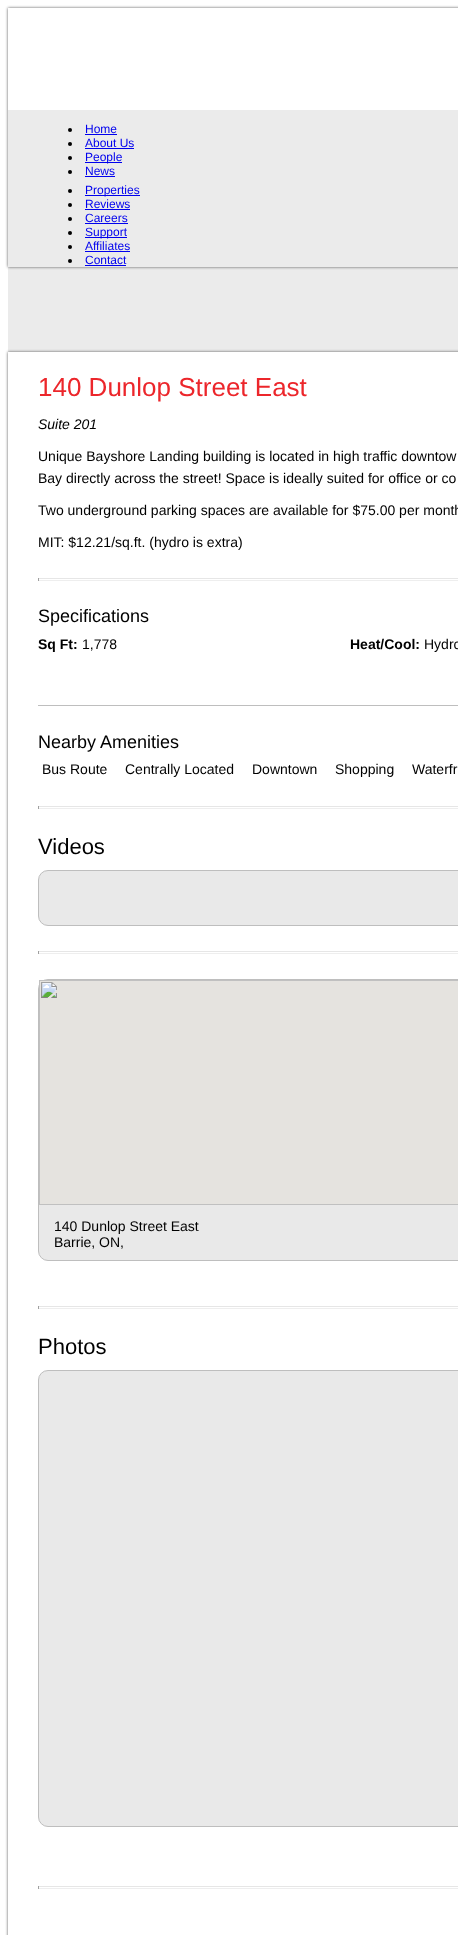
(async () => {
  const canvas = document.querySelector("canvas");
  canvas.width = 458;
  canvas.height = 1935;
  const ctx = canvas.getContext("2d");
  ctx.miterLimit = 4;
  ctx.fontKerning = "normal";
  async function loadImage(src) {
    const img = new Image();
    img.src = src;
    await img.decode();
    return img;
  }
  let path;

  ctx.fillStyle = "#ffffff";
  ctx.fillRect(0, 0, 458, 1935);
  ctx.fillStyle = "#ebebeb";
  ctx.fillRect(8, 110, 450, 242);
  ctx.save();
  path = new Path2D("M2 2H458V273H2ZM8 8H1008V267H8Z");
  ctx.clip(path, "evenodd");
  ctx.fillStyle = "#555555";
  ctx.filter = "blur(1.5px)";
  ctx.beginPath();
  ctx.rect(8, 8, 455, 259);
  ctx.fill();
  ctx.filter = "none";
  ctx.restore();
  ctx.fillStyle = "#000000";
  ctx.beginPath();
  ctx.arc(70, 130, 2, 0, Math.PI * 2);
  ctx.fill();
  ctx.fillStyle = "#0000ee";
  ctx.fillRect(85, 134, 32, 1);
  ctx.fillStyle = "#000000";
  ctx.beginPath();
  ctx.arc(70, 144, 2, 0, Math.PI * 2);
  ctx.fill();
  ctx.fillStyle = "#0000ee";
  ctx.fillRect(85, 148, 49, 1);
  ctx.fillStyle = "#000000";
  ctx.beginPath();
  ctx.arc(70, 158, 2, 0, Math.PI * 2);
  ctx.fill();
  ctx.fillStyle = "#0000ee";
  ctx.fillRect(85, 162, 37, 1);
  ctx.fillStyle = "#000000";
  ctx.beginPath();
  ctx.arc(70, 172, 2, 0, Math.PI * 2);
  ctx.fill();
  ctx.fillStyle = "#0000ee";
  ctx.fillRect(85, 176, 30, 1);
  ctx.fillStyle = "#000000";
  ctx.beginPath();
  ctx.arc(70, 191, 2, 0, Math.PI * 2);
  ctx.fill();
  ctx.fillStyle = "#0000ee";
  ctx.fillRect(85, 195, 55, 1);
  ctx.fillStyle = "#000000";
  ctx.beginPath();
  ctx.arc(70, 205, 2, 0, Math.PI * 2);
  ctx.fill();
  ctx.fillStyle = "#0000ee";
  ctx.fillRect(85, 209, 45, 1);
  ctx.fillStyle = "#000000";
  ctx.beginPath();
  ctx.arc(70, 219, 2, 0, Math.PI * 2);
  ctx.fill();
  ctx.fillStyle = "#0000ee";
  ctx.fillRect(85, 223, 43, 1);
  ctx.fillStyle = "#000000";
  ctx.beginPath();
  ctx.arc(70, 233, 2, 0, Math.PI * 2);
  ctx.fill();
  ctx.fillStyle = "#0000ee";
  ctx.fillRect(85, 237, 42, 1);
  ctx.fillStyle = "#000000";
  ctx.beginPath();
  ctx.arc(70, 247, 2, 0, Math.PI * 2);
  ctx.fill();
  ctx.fillStyle = "#0000ee";
  ctx.fillRect(85, 251, 45, 1);
  ctx.fillStyle = "#000000";
  ctx.beginPath();
  ctx.arc(70, 261, 2, 0, Math.PI * 2);
  ctx.fill();
  ctx.fillStyle = "#0000ee";
  ctx.fillRect(85, 265, 41, 1);
  ctx.fillStyle = "#555555";
  ctx.filter = "blur(1.5px)";
  ctx.beginPath();
  ctx.rect(8, 352, 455, 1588);
  ctx.fill();
  ctx.filter = "none";
  for (const [x, y, w, h, color] of [
    [8, 352, 450, 1583, "#ffffff"],
    [38, 578, 420, 1, "#e6e6e6"],
    [38, 580, 420, 1, "#eeeeee"],
    [38, 578, 1, 3, "#9f9f9f"],
    [38, 705, 420, 1, "#bebebe"],
    [38, 806, 420, 1, "#e6e6e6"],
    [38, 808, 420, 1, "#eeeeee"],
    [38, 806, 1, 3, "#9f9f9f"],
  ]) {
    ctx.fillStyle = color;
    ctx.fillRect(x, y, w, h);
  }
  ctx.fillStyle = "#e9e9e9";
  ctx.beginPath();
  ctx.roundRect(38.5, 870.5, 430, 55, 9.5);
  ctx.fill();
  ctx.strokeStyle = "#bebebe";
  ctx.stroke();
  for (const [x, y, w, h, color] of [
    [38, 951, 420, 1, "#e6e6e6"],
    [38, 953, 420, 1, "#eeeeee"],
    [38, 951, 1, 3, "#9f9f9f"],
  ]) {
    ctx.fillStyle = color;
    ctx.fillRect(x, y, w, h);
  }
  ctx.fillStyle = "#e9e9e9";
  ctx.beginPath();
  ctx.roundRect(38.5, 979.5, 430, 281, 9.5);
  ctx.fill();
  ctx.stroke();
  ctx.drawImage(await loadImage("img/1.png"), 39, 980, 419, 225);
  for (const [x, y, w, h, color] of [
    [38, 1306, 420, 1, "#e6e6e6"],
    [38, 1308, 420, 1, "#eeeeee"],
    [38, 1306, 1, 3, "#9f9f9f"],
  ]) {
    ctx.fillStyle = color;
    ctx.fillRect(x, y, w, h);
  }
  ctx.fillStyle = "#e9e9e9";
  ctx.beginPath();
  ctx.roundRect(38.5, 1370.5, 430, 456, 9.5);
  ctx.fill();
  ctx.stroke();
  for (const [x, y, w, h, color] of [
    [38, 1886, 420, 1, "#e6e6e6"],
    [38, 1888, 420, 1, "#eeeeee"],
    [38, 1886, 1, 3, "#9f9f9f"],
  ]) {
    ctx.fillStyle = color;
    ctx.fillRect(x, y, w, h);
  }
  ctx.font = "12px Liberation Sans";
  ctx.fillStyle = "#0000ee";
  for (const [text, x, y] of [
    ["Home", 85, 133],
    ["About Us", 85, 147],
    ["People", 85, 161],
    ["News", 85, 175],
    ["Properties", 85, 194],
    ["Reviews", 85, 208],
    ["Careers", 85, 222],
    ["Support", 85, 236],
    ["Affiliates", 85, 250],
    ["Contact", 85, 264],
  ]) {
    ctx.fillText(text, x, y);
  }
  ctx.font = "26px Liberation Sans";
  ctx.fillStyle = "#ec262b";
  ctx.fillText("140 Dunlop Street East", 38, 396);
  ctx.font = "italic 14px Liberation Sans";
  ctx.fillStyle = "#000000";
  ctx.fillText("Suite 201", 38, 429);
  ctx.font = "14px Liberation Sans";
  for (const [text, x, y] of [
    ["Unique Bayshore Landing building is located in high traffic downtow", 38, 461],
    ["Bay directly across the street! Space is ideally suited for office or co", 38, 483],
    ["Two underground parking spaces are available for $75.00 per month", 38, 515],
    ["MIT: $12.21/sq.ft. (hydro is extra)", 38, 547],
  ]) {
    ctx.fillText(text, x, y);
  }
  ctx.font = "18px Liberation Sans";
  ctx.fillText("Specifications", 38, 622);
  ctx.font = "bold 14px Liberation Sans";
  ctx.fillText("Sq Ft:", 38, 649);
  ctx.font = "14px Liberation Sans";
  ctx.fillText("1,778", 82, 649);
  ctx.font = "bold 14px Liberation Sans";
  ctx.fillText("Heat/Cool:", 350, 649);
  ctx.font = "14px Liberation Sans";
  ctx.fillText("Hydro", 424, 649);
  ctx.font = "18px Liberation Sans";
  ctx.fillText("Nearby Amenities", 38, 748);
  ctx.font = "14px Liberation Sans";
  for (const [text, x, y] of [
    ["Bus Route", 42, 774],
    ["Centrally Located", 125, 774],
    ["Downtown", 252, 774],
    ["Shopping", 335, 774],
    ["Waterfr", 412, 774],
  ]) {
    ctx.fillText(text, x, y);
  }
  ctx.font = "22px Liberation Sans";
  ctx.fillText("Videos", 38, 854);
  ctx.font = "14px Liberation Sans";
  ctx.fillText("140 Dunlop Street East", 54, 1231);
  ctx.fillText("Barrie, ON,", 54, 1247);
  ctx.font = "22px Liberation Sans";
  ctx.fillText("Photos", 38, 1354);
})();
